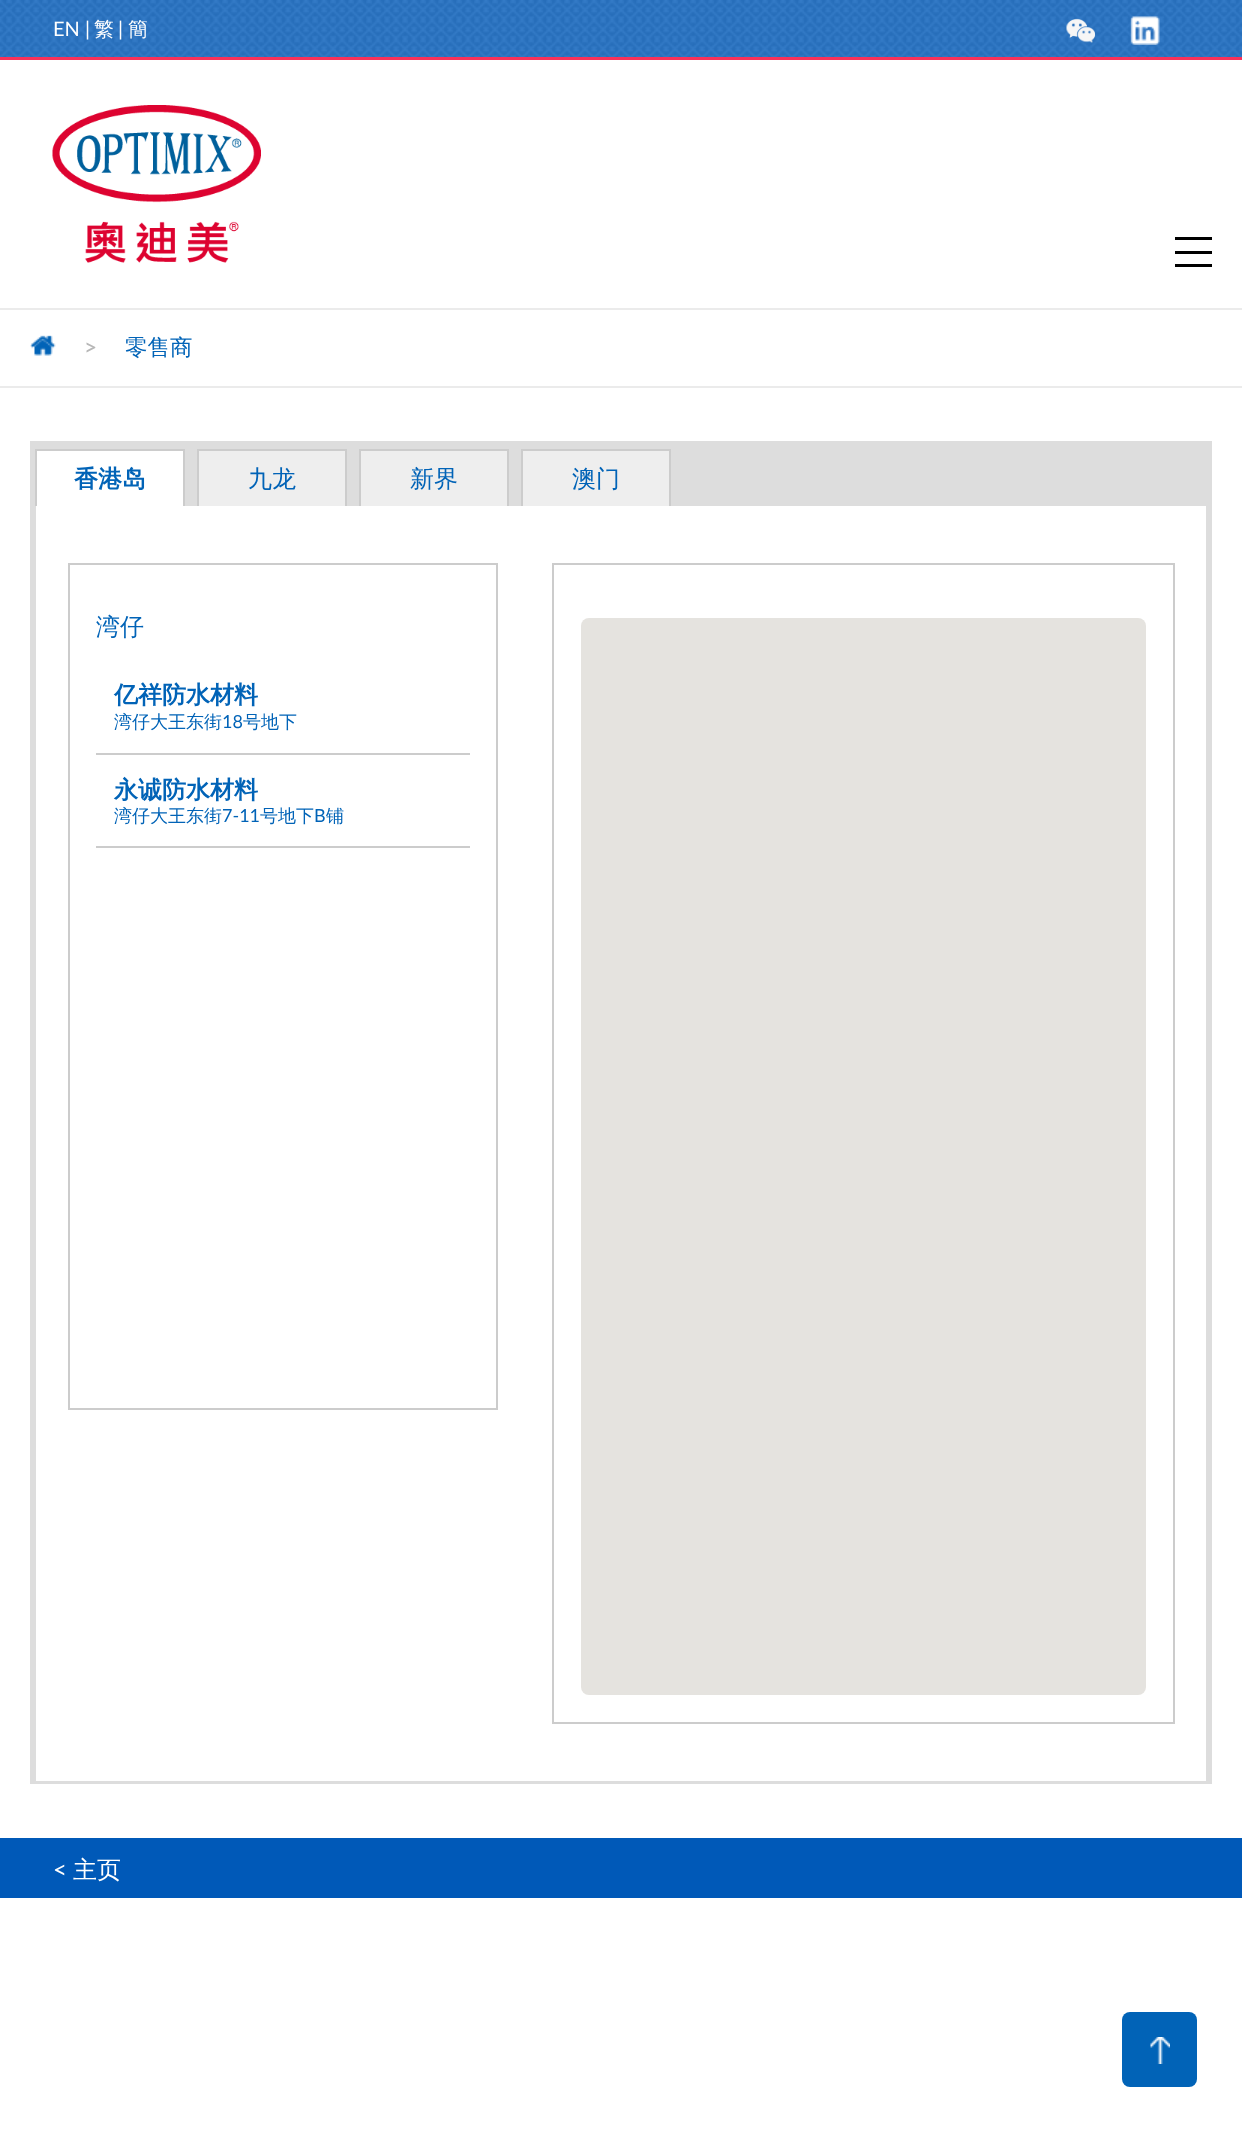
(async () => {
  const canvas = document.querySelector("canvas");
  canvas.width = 1242;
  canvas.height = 2154;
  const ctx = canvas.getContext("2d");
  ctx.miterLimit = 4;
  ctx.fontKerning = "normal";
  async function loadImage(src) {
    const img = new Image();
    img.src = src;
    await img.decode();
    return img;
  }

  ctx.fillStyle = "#ffffff";
  ctx.fillRect(0, 0, 1242, 2154);
  ctx.fillStyle = "#0059b8";
  ctx.fillRect(0, 0, 1242, 57);
  ctx.drawImage(await loadImage("img/1.png"), 0, 0, 1242, 57);
  ctx.fillStyle = "#f9315a";
  ctx.fillRect(0, 57, 1242, 3);
  ctx.drawImage(await loadImage("img/2.png"), 1066, 18, 29, 25);
  ctx.drawImage(await loadImage("img/3.png"), 1130, 16, 30, 29);
  ctx.drawImage(await loadImage("img/4.png"), 52, 105, 209, 158);
  for (const [x, y, w, h, color] of [
    [1175, 237, 37, 3, "#000000"],
    [1175, 251, 37, 3, "#000000"],
    [1175, 264, 37, 3, "#000000"],
    [0, 308, 1242, 2, "#ebebeb"],
    [0, 386, 1242, 2, "#ebebeb"],
  ]) {
    ctx.fillStyle = color;
    ctx.fillRect(x, y, w, h);
  }
  ctx.drawImage(await loadImage("img/5.png"), 30, 335, 26, 21);
  for (const [x, y, w, h, color] of [
    [30, 441, 1182, 1343, "#dddddd"],
    [37, 451, 146, 55, "#ffffff"],
    [35, 449, 150, 2, "#cccccc"],
    [183, 449, 2, 57, "#cccccc"],
    [35, 449, 2, 57, "#cccccc"],
    [199, 451, 146, 55, "#eeeeee"],
    [197, 449, 150, 2, "#cccccc"],
    [345, 449, 2, 57, "#cccccc"],
    [197, 449, 2, 57, "#cccccc"],
    [361, 451, 146, 55, "#eeeeee"],
    [359, 449, 150, 2, "#cccccc"],
    [507, 449, 2, 57, "#cccccc"],
    [359, 449, 2, 57, "#cccccc"],
    [523, 451, 146, 55, "#eeeeee"],
    [521, 449, 150, 2, "#cccccc"],
    [669, 449, 2, 57, "#cccccc"],
    [521, 449, 2, 57, "#cccccc"],
    [36, 506, 1170, 1275, "#ffffff"],
  ]) {
    ctx.fillStyle = color;
    ctx.fillRect(x, y, w, h);
  }
  ctx.strokeStyle = "#cccccc";
  ctx.lineWidth = 2;
  ctx.strokeRect(69, 564, 428, 845);
  ctx.fillStyle = "#cccccc";
  ctx.fillRect(96, 753, 374, 2);
  ctx.fillRect(96, 846, 374, 2);
  ctx.strokeRect(553, 564, 621, 1159);
  ctx.fillStyle = "#e5e3df";
  ctx.beginPath();
  ctx.roundRect(581, 618, 565, 1077, 8);
  ctx.fill();
  ctx.fillStyle = "#0059b8";
  ctx.fillRect(0, 1838, 1242, 60);
  ctx.fillStyle = "#0163b7";
  ctx.beginPath();
  ctx.roundRect(1122, 2012, 75, 75, 8);
  ctx.fill();
  ctx.drawImage(await loadImage("img/6.png"), 1150, 2037, 20, 27);
  ctx.font = "20px Lato";
  ctx.fillStyle = "#ffffff";
  ctx.fillText("EN |", 53, 36);
  ctx.font = "500 20px WenQuanYi Zen Hei";
  ctx.fillText("繁", 94, 36);
  ctx.font = "20px Lato";
  ctx.fillText("|", 118, 36);
  ctx.font = "500 20px WenQuanYi Zen Hei";
  ctx.fillText("簡", 128, 36);
  ctx.font = "500 22.5px Lato";
  ctx.fillStyle = "#b7b7b7";
  ctx.fillText(">", 84, 355);
  ctx.font = "500 22.5px WenQuanYi Zen Hei";
  ctx.fillStyle = "#0163b7";
  ctx.fillText("零售商", 125, 355);
  ctx.font = "bold 24px WenQuanYi Zen Hei";
  ctx.fillText("香港岛", 74, 487);
  ctx.font = "500 24px WenQuanYi Zen Hei";
  for (const [text, x, y] of [
    ["九龙", 248, 487],
    ["新界", 410, 487],
    ["澳门", 572, 487],
    ["湾仔", 96, 635],
  ]) {
    ctx.fillText(text, x, y);
  }
  ctx.font = "bold 24px WenQuanYi Zen Hei";
  ctx.fillText("亿祥防水材料", 114, 703);
  ctx.font = "500 18px WenQuanYi Zen Hei";
  ctx.fillText("湾仔大王东街", 114, 728);
  ctx.font = "18px Lato";
  ctx.fillText("18", 222, 728);
  ctx.font = "500 18px WenQuanYi Zen Hei";
  ctx.fillText("号地下", 243, 728);
  ctx.font = "bold 24px WenQuanYi Zen Hei";
  ctx.fillText("永诚防水材料", 114, 798);
  ctx.font = "500 18px WenQuanYi Zen Hei";
  ctx.fillText("湾仔大王东街", 114, 822);
  ctx.font = "18px Lato";
  ctx.fillText("7-11", 222, 822);
  ctx.font = "500 18px WenQuanYi Zen Hei";
  ctx.fillText("号地下", 260, 822);
  ctx.font = "18px Lato";
  ctx.fillText("B", 314, 822);
  ctx.font = "500 18px WenQuanYi Zen Hei";
  ctx.fillText("铺", 326, 822);
  ctx.font = "24px Lato";
  ctx.fillStyle = "#ffffff";
  ctx.fillText("<", 53, 1878);
  ctx.font = "500 24px WenQuanYi Zen Hei";
  ctx.fillText("主页", 73, 1878);
})();
